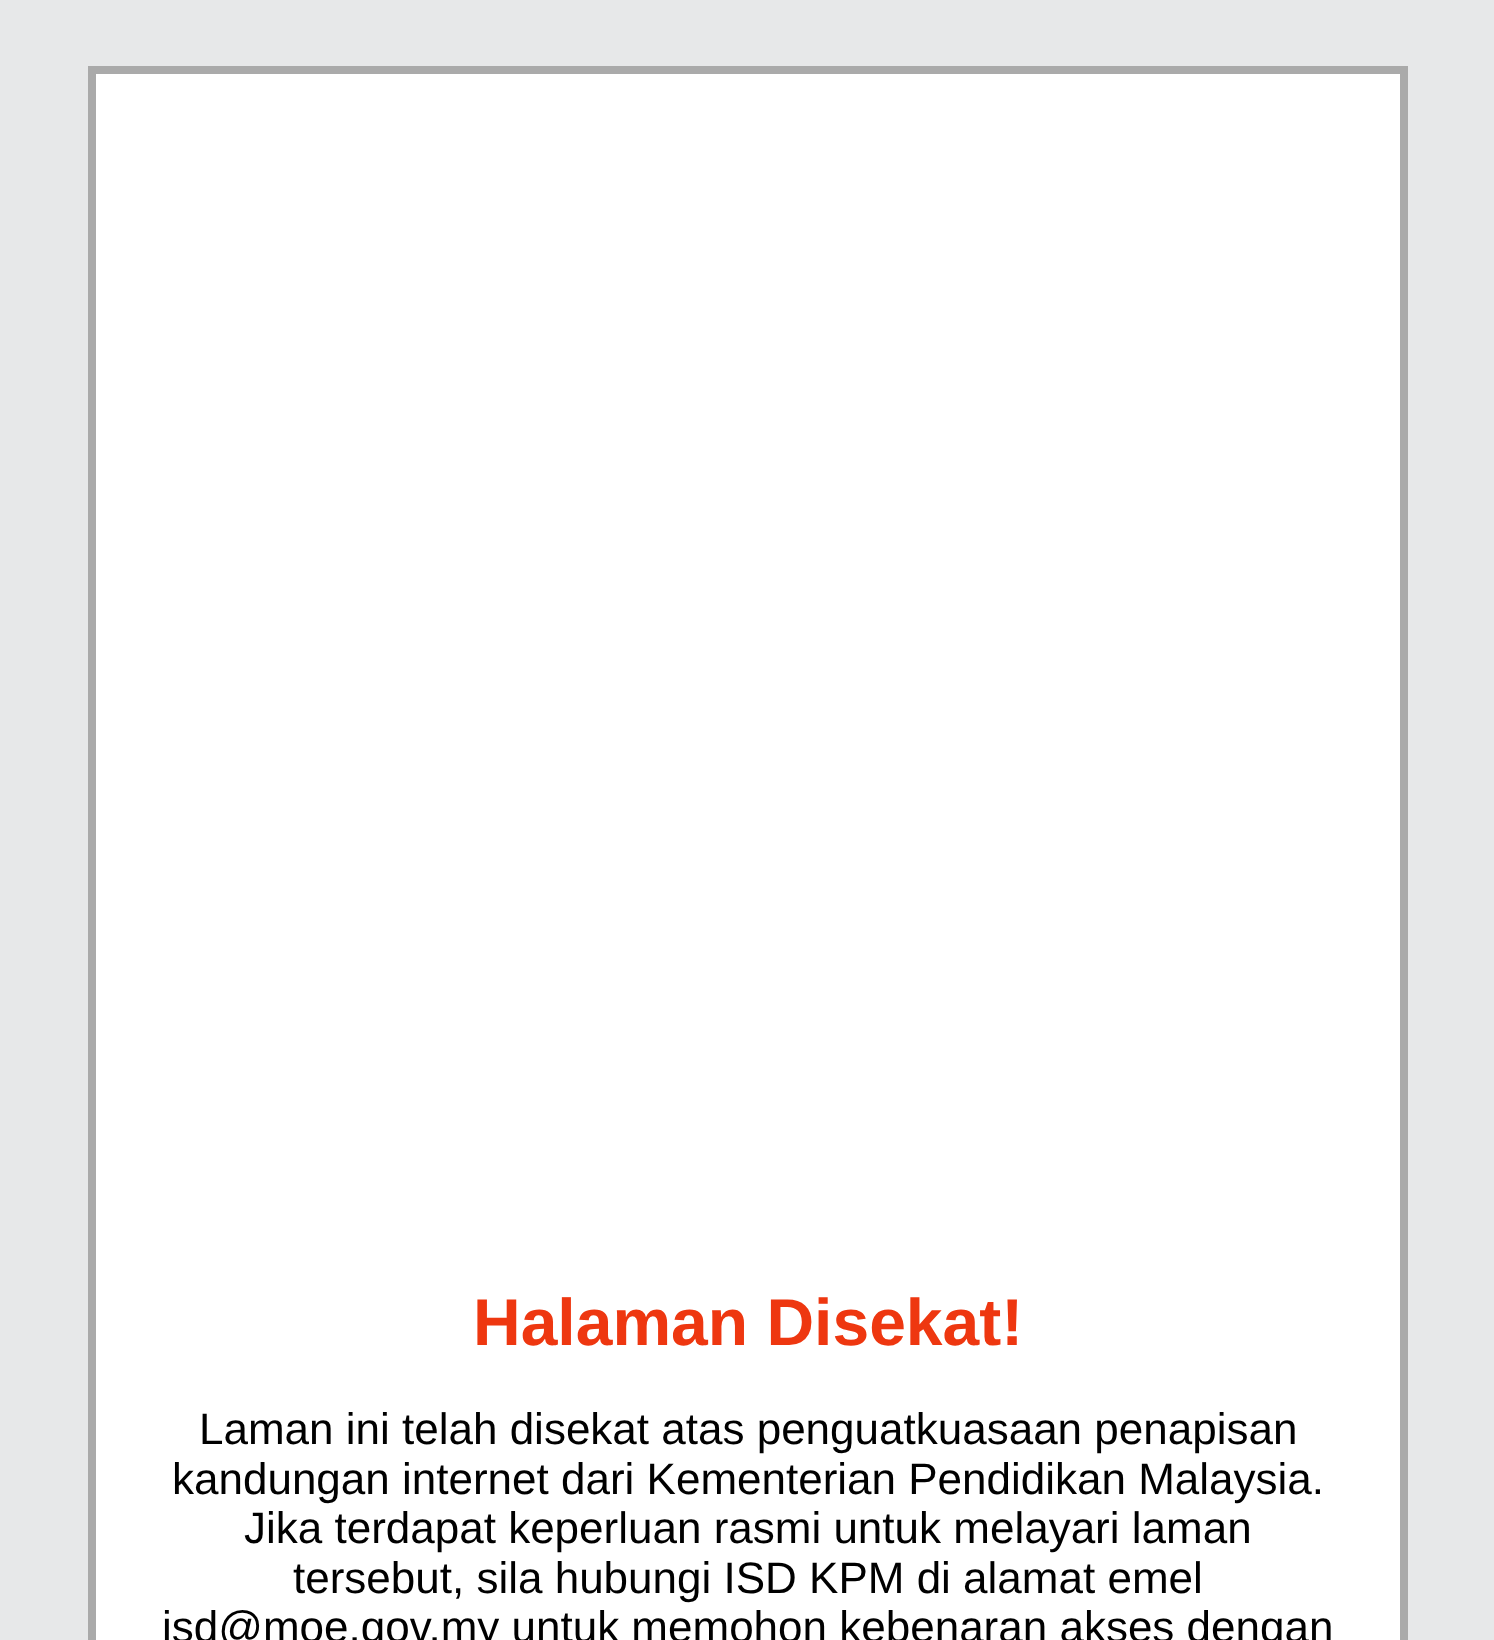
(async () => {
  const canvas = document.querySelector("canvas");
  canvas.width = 1494;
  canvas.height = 1640;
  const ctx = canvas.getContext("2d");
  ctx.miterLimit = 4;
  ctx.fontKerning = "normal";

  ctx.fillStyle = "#e7e8e9";
  ctx.fillRect(0, 0, 1494, 1640);
  ctx.fillStyle = "#ffffff";
  ctx.beginPath();
  ctx.rect(92, 70, 1312, 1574);
  ctx.fill();
  ctx.strokeStyle = "#aaaaaa";
  ctx.lineWidth = 8;
  ctx.stroke();
  ctx.font = "bold 66px Liberation Sans";
  ctx.fillStyle = "#ee3710";
  ctx.fillText("Halaman Disekat!", 473, 1345);
  ctx.font = "44px Liberation Sans";
  ctx.fillStyle = "#000000";
  for (const [text, x, y] of [
    ["Laman ini telah disekat atas penguatkuasaan penapisan", 199, 1444],
    ["kandungan internet dari Kementerian Pendidikan Malaysia.", 172, 1494],
    ["Jika terdapat keperluan rasmi untuk melayari laman", 244, 1543],
    ["tersebut, sila hubungi ISD KPM di alamat emel", 293, 1593],
    ["isd@moe.gov.my untuk memohon kebenaran akses dengan", 162, 1642],
  ]) {
    ctx.fillText(text, x, y);
  }
})();
